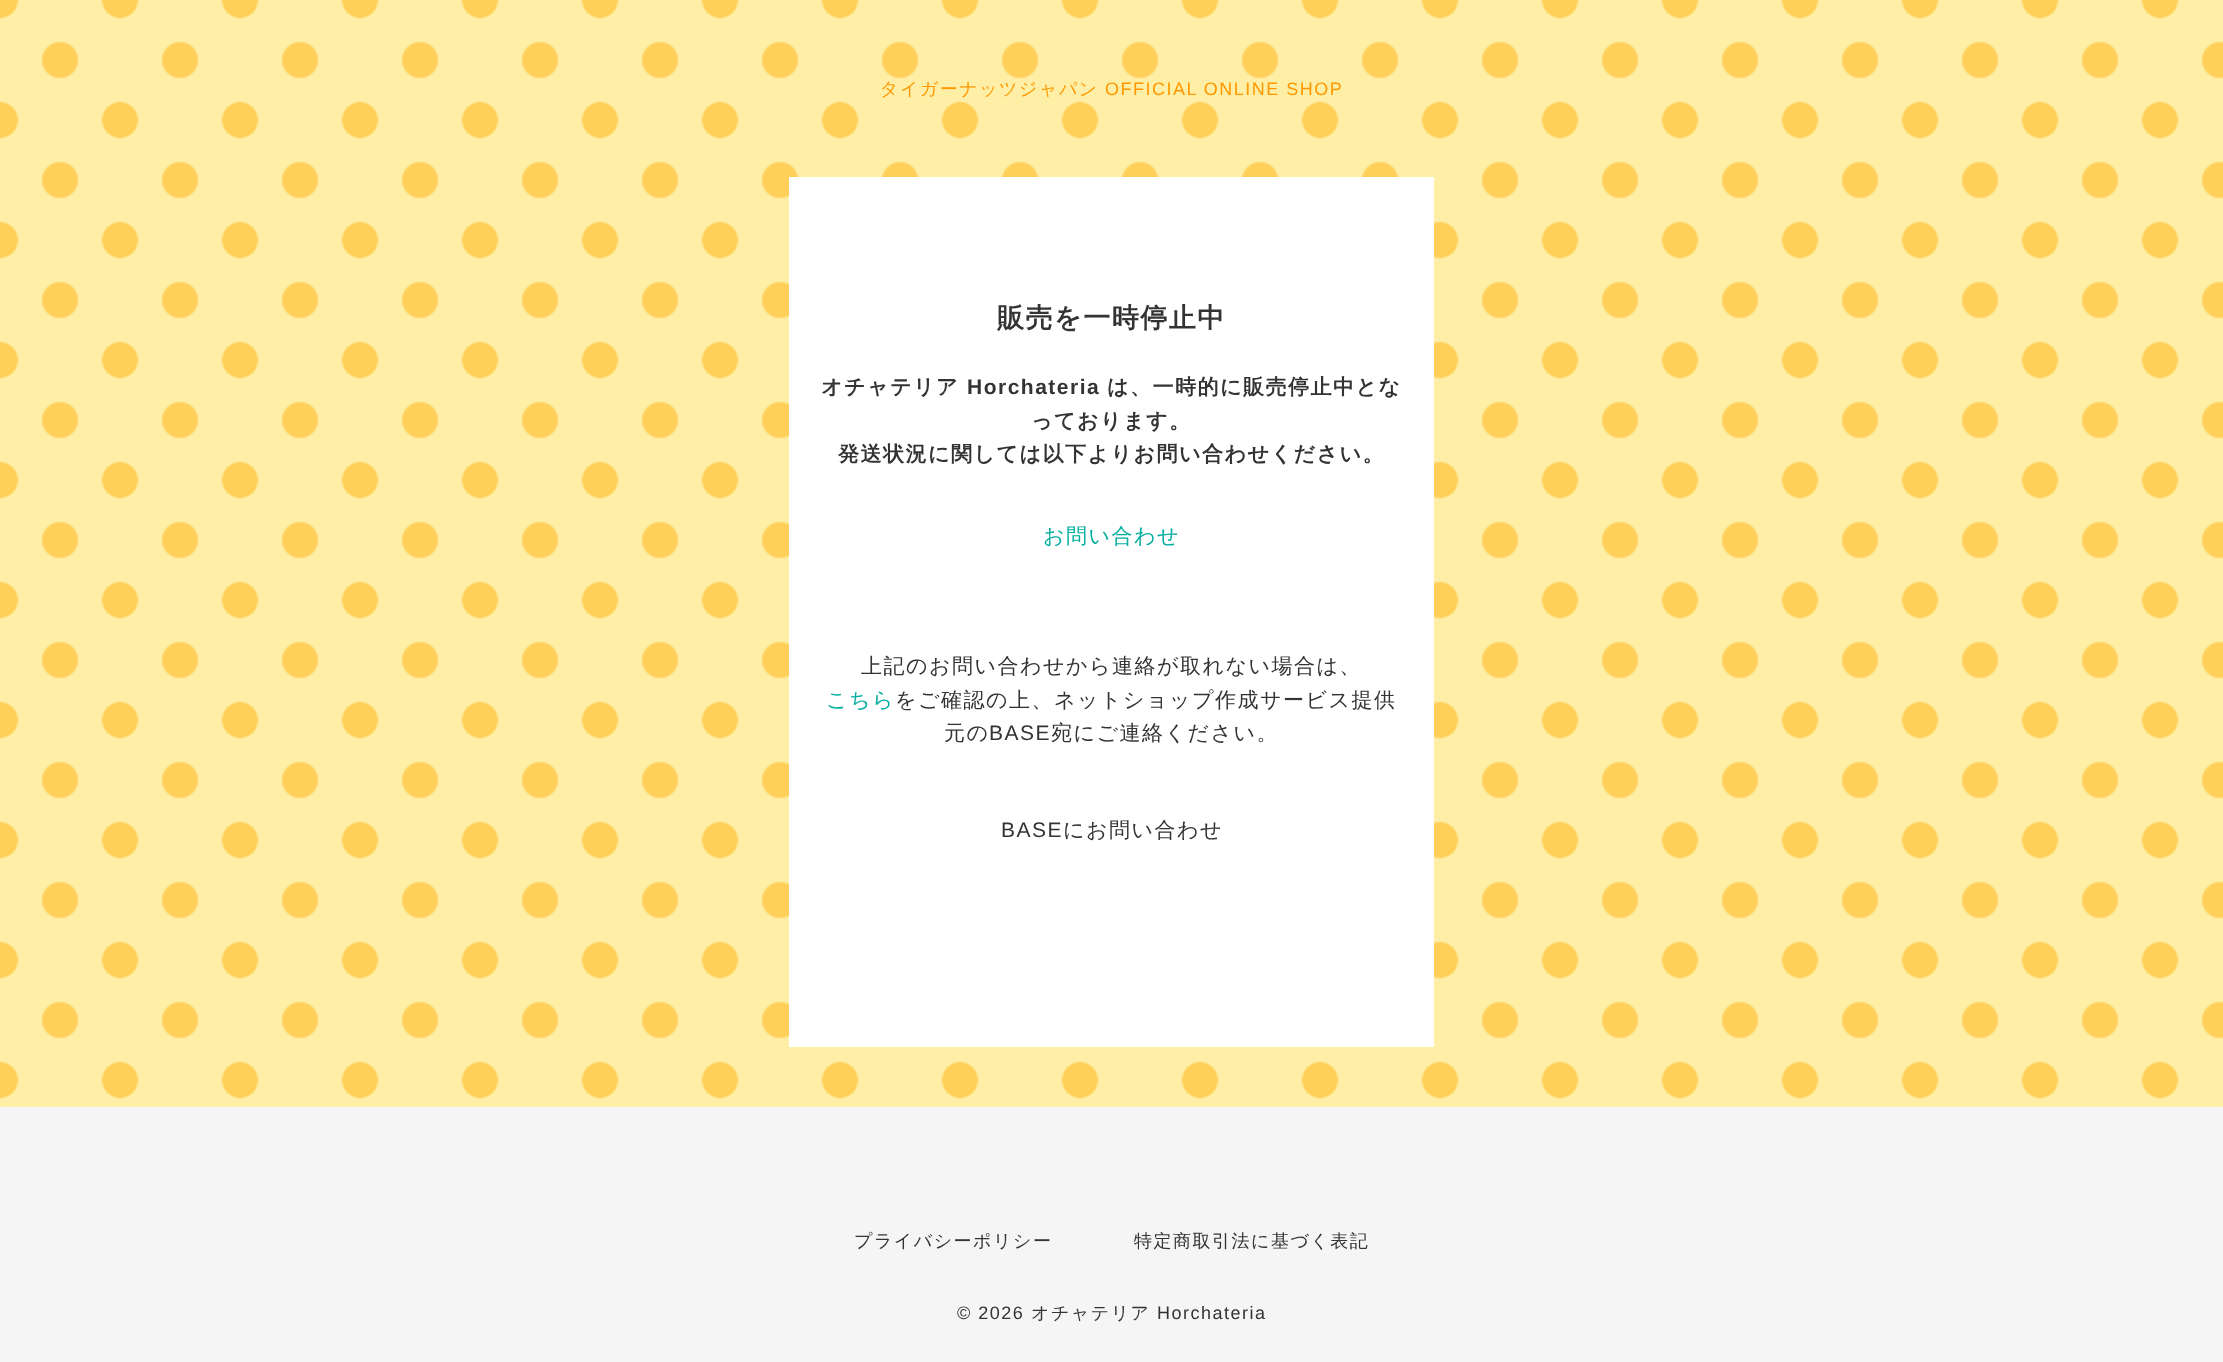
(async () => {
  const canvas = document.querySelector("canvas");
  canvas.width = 2223;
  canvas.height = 1362;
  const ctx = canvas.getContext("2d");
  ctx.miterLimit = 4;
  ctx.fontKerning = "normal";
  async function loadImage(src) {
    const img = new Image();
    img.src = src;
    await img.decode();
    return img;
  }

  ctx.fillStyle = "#ffffff";
  ctx.fillRect(0, 0, 2223, 1362);
  ctx.drawImage(await loadImage("img/1.png"), 0, 0, 2223, 1107);
  ctx.fillRect(789, 177, 645, 870);
  ctx.fillStyle = "#f5f5f5";
  ctx.fillRect(0, 1107, 2223, 255);
  ctx.letterSpacing = "1.5px";
  ctx.font = "500 18px WenQuanYi Zen Hei";
  ctx.fillStyle = "#ff9800";
  ctx.fillText("タイガーナッツジャパン", 880, 95);
  ctx.font = "18px Liberation Sans";
  ctx.fillText("OFFICIAL ONLINE SHOP", 1105, 95);
  ctx.font = "bold 27px WenQuanYi Zen Hei";
  ctx.fillStyle = "#333333";
  ctx.fillText("販売を一時停止中", 997, 327);
  ctx.font = "bold 21px WenQuanYi Zen Hei";
  ctx.fillText("オチャテリア", 821, 394);
  ctx.font = "bold 21px Liberation Sans";
  ctx.fillText("Horchateria", 967, 394);
  ctx.font = "bold 21px WenQuanYi Zen Hei";
  for (const [text, x, y] of [
    ["は、一時的に販売停止中とな", 1107, 394],
    ["っております。", 1031, 428],
    ["発送状況に関しては以下よりお問い合わせください。", 838, 461],
  ]) {
    ctx.fillText(text, x, y);
  }
  ctx.font = "500 21px WenQuanYi Zen Hei";
  ctx.fillStyle = "#00ae9f";
  ctx.fillText("お問い合わせ", 1043, 543);
  ctx.fillStyle = "#333333";
  ctx.fillText("上記のお問い合わせから連絡が取れない場合は、", 861, 673);
  ctx.fillStyle = "#00ae9f";
  ctx.fillText("こちら", 826, 707);
  ctx.fillStyle = "#333333";
  ctx.fillText("をご確認の上、ネットショップ作成サービス提供", 895, 707);
  ctx.fillText("元の", 944, 740);
  ctx.font = "21px Liberation Sans";
  ctx.fillText("BASE", 989, 740);
  ctx.font = "500 21px WenQuanYi Zen Hei";
  ctx.fillText("宛にご連絡ください。", 1051, 740);
  ctx.font = "21px Liberation Sans";
  ctx.fillText("BASE", 1001, 837);
  ctx.font = "500 21px WenQuanYi Zen Hei";
  ctx.fillText("にお問い合わせ", 1063, 837);
  ctx.font = "500 18px WenQuanYi Zen Hei";
  ctx.fillText("プライバシーポリシー", 854, 1247);
  ctx.fillText("特定商取引法に基づく表記", 1134, 1247);
  ctx.font = "18px Liberation Sans";
  ctx.fillText("© 2026", 957, 1319);
  ctx.font = "500 18px WenQuanYi Zen Hei";
  ctx.fillText("オチャテリア", 1031, 1319);
  ctx.font = "18px Liberation Sans";
  ctx.fillText("Horchateria", 1157, 1319);
})();
